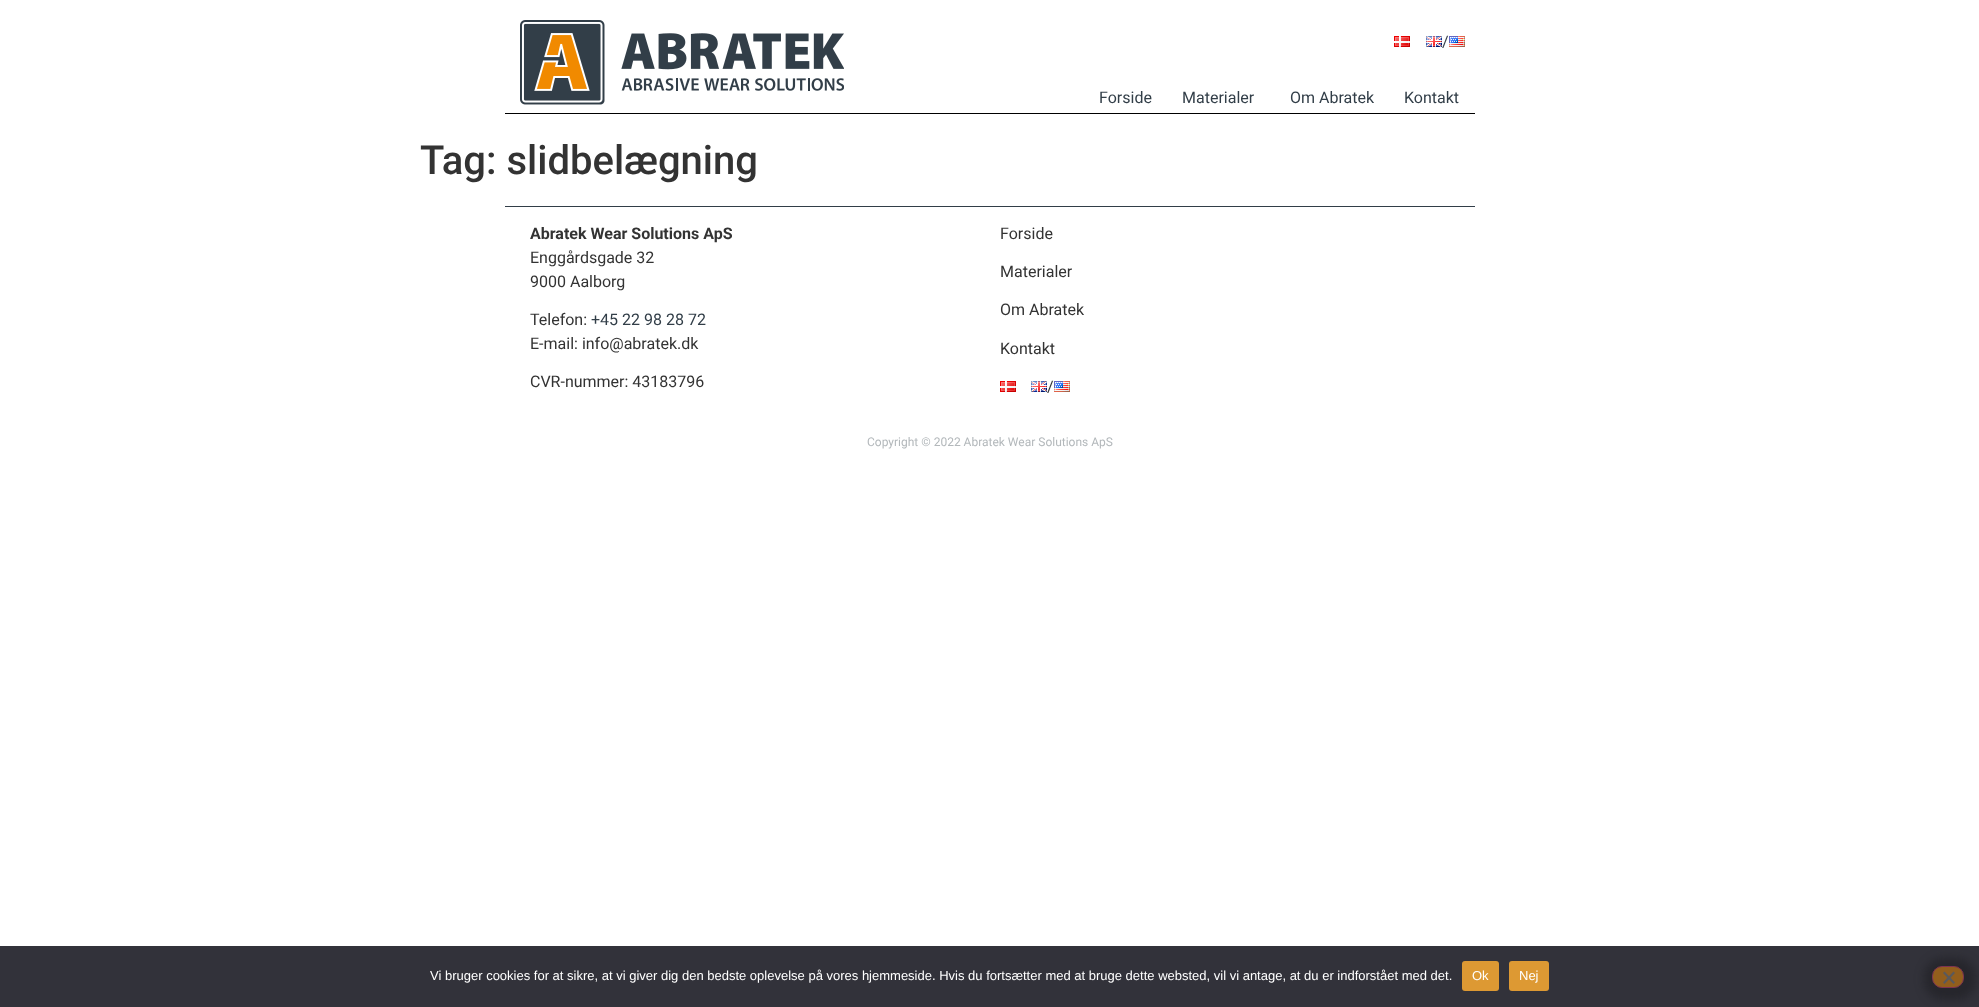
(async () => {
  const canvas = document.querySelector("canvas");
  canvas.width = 1979;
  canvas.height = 1007;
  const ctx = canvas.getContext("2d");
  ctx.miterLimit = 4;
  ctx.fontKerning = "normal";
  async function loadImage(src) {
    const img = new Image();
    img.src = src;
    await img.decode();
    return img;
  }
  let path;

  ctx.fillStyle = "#ffffff";
  ctx.fillRect(0, 0, 1979, 1007);
  ctx.drawImage(await loadImage("img/1.png"), 520, 20, 324, 85);
  ctx.drawImage(await loadImage("img/2.png"), 1394, 36, 16, 11);
  ctx.drawImage(await loadImage("img/3.png"), 1426, 36, 16, 11);
  ctx.drawImage(await loadImage("img/4.png"), 1449, 36, 16, 11);
  ctx.fillStyle = "#000000";
  ctx.fillRect(505, 113, 970, 1);
  ctx.fillStyle = "#323e48";
  ctx.fillRect(505, 206, 970, 1);
  ctx.drawImage(await loadImage("img/2.png"), 1000, 381, 16, 11);
  ctx.drawImage(await loadImage("img/3.png"), 1031, 381, 16, 11);
  ctx.drawImage(await loadImage("img/4.png"), 1054, 381, 16, 11);
  ctx.fillStyle = "#32323a";
  ctx.fillRect(0, 946, 1979, 61);
  ctx.fillStyle = "#dd9933";
  ctx.beginPath();
  ctx.roundRect(1462, 961, 37, 30, 3);
  ctx.fill();
  ctx.beginPath();
  ctx.roundRect(1509, 961, 40, 30, 3);
  ctx.fill();
  ctx.fillStyle = "rgba(25, 25, 29, 0.5)";
  ctx.filter = "blur(5px)";
  ctx.beginPath();
  ctx.roundRect(1924, 958, 52, 42, 20);
  ctx.fill();
  ctx.filter = "none";
  ctx.fillStyle = "#925e1d";
  ctx.beginPath();
  ctx.roundRect(1932.5, 966.5, 31, 21, 9.5);
  ctx.fill();
  ctx.strokeStyle = "#7f3350";
  ctx.stroke();
  ctx.fillStyle = "#59595d";
  path = new Path2D("M1953.5 971.5L1955 973L1944.5 984L1943 982.5Z");
  ctx.fill(path);
  path = new Path2D("M1943 973L1944.5 971.5L1955 982.5L1953.5 984Z");
  ctx.fill(path);
  ctx.font = "16px Roboto";
  ctx.fillStyle = "#323e48";
  for (const [text, x, y] of [
    ["/", 1442, 47],
    ["Forside", 1099, 103],
    ["Materialer", 1182, 103],
    ["Om Abratek", 1290, 103],
    ["Kontakt", 1404, 103],
  ]) {
    ctx.fillText(text, x, y);
  }
  ctx.font = "500 40px Roboto";
  ctx.fillStyle = "#333333";
  ctx.fillText("Tag: slidbelægning", 420, 174);
  ctx.font = "bold 16px Roboto";
  ctx.fillText("Abratek Wear Solutions ApS", 530, 239);
  ctx.font = "16px Roboto";
  for (const [text, x, y] of [
    ["Enggårdsgade 32", 530, 263],
    ["9000 Aalborg", 530, 287],
    ["Telefon:", 530, 325],
  ]) {
    ctx.fillText(text, x, y);
  }
  ctx.fillStyle = "#323e48";
  ctx.fillText("+45 22 98 28 72", 591, 325);
  ctx.fillStyle = "#333333";
  for (const [text, x, y] of [
    ["E-mail: info@abratek.dk", 530, 349],
    ["CVR-nummer: 43183796", 530, 387],
    ["Forside", 1000, 239],
    ["Materialer", 1000, 277],
    ["Om Abratek", 1000, 315],
    ["Kontakt", 1000, 354],
    ["/", 1047, 392],
  ]) {
    ctx.fillText(text, x, y);
  }
  ctx.font = "12px Roboto";
  ctx.fillStyle = "#b3b8bb";
  ctx.fillText("Copyright © 2022 Abratek Wear Solutions ApS", 867, 446);
  ctx.font = "13px Liberation Sans";
  ctx.fillStyle = "#ffffff";
  for (const [text, x, y] of [
    ["Vi bruger cookies for at sikre, at vi giver dig den bedste oplevelse på vores hjemmeside. Hvis du fortsætter med at bruge dette websted, vil vi antage, at du er indforstået med det.", 430, 980],
    ["Ok", 1472, 980],
    ["Nej", 1519, 980],
  ]) {
    ctx.fillText(text, x, y);
  }
})();
